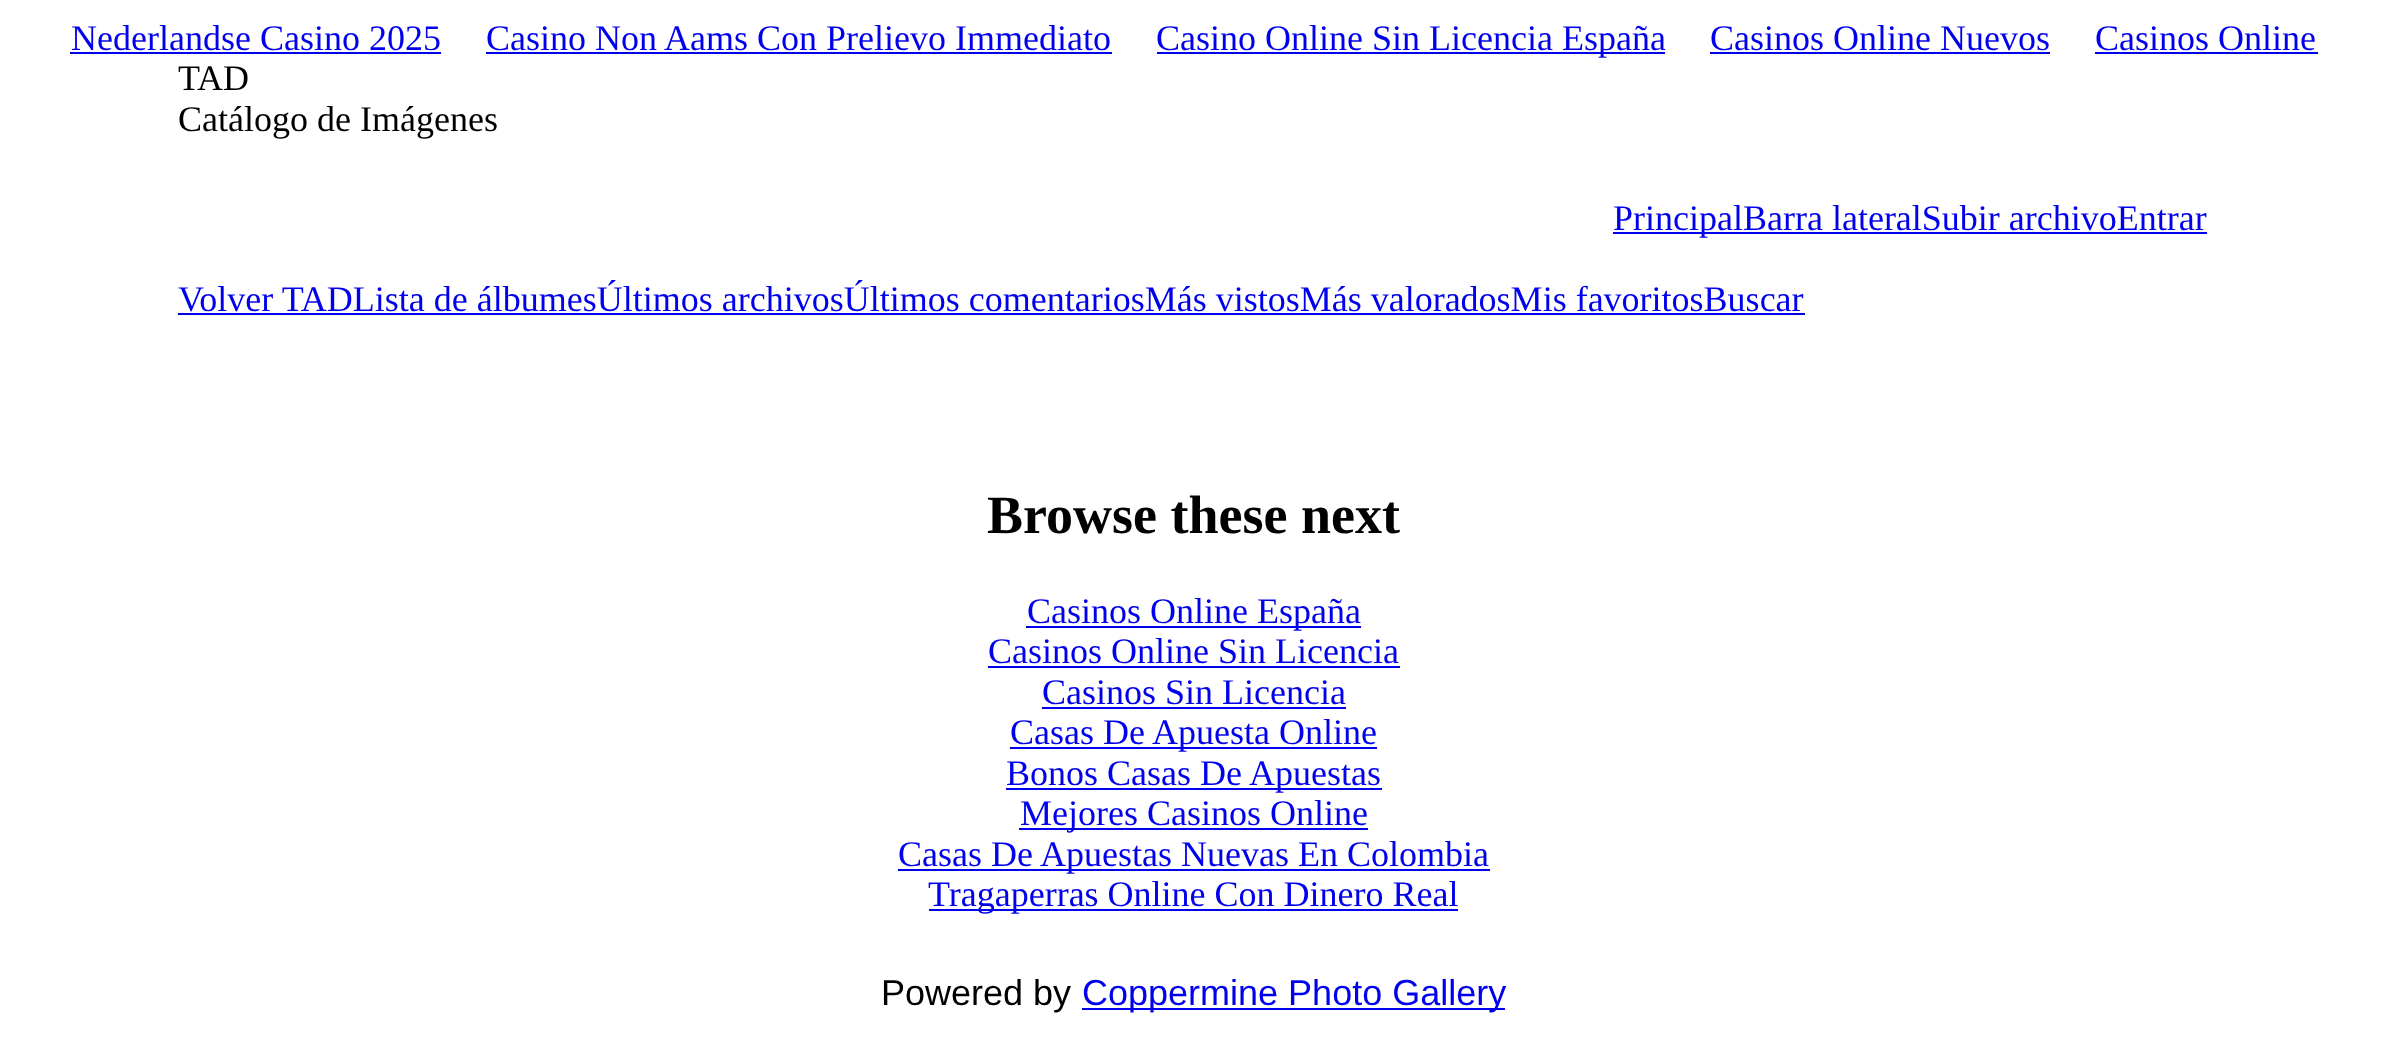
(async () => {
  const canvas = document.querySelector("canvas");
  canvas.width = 2386;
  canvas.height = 1056;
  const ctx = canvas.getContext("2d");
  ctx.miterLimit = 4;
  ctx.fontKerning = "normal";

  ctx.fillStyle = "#ffffff";
  ctx.fillRect(0, 0, 2386, 1056);
  for (const [x, y, w, h, color] of [
    [70, 52, 371, 2, "#0000ee"],
    [486, 52, 626, 2, "#0000ee"],
    [1157, 52, 508, 2, "#0000ee"],
    [1710, 52, 340, 2, "#0000ee"],
    [2095, 52, 223, 2, "#0000ee"],
    [1613, 232, 594, 2, "#0000ee"],
    [178, 313, 1627, 2, "#0000ee"],
    [1026, 626, 335, 2, "#0000ee"],
    [988, 666, 412, 2, "#0000ee"],
    [1042, 707, 304, 2, "#0000ee"],
    [1010, 747, 367, 2, "#0000ee"],
    [1006, 788, 376, 2, "#0000ee"],
    [1019, 828, 349, 2, "#0000ee"],
    [898, 869, 592, 2, "#0000ee"],
    [929, 909, 529, 2, "#0000ee"],
    [1082, 1008, 423, 2, "#0000ee"],
  ]) {
    ctx.fillStyle = color;
    ctx.fillRect(x, y, w, h);
  }
  ctx.font = "36px Liberation Serif";
  for (const [text, x, y] of [
    ["Nederlandse Casino 2025", 71, 50],
    ["Casino Non Aams Con Prelievo Immediato", 486, 50],
    ["Casino Online Sin Licencia España", 1156, 50],
    ["Casinos Online Nuevos", 1710, 50],
    ["Casinos Online", 2095, 50],
  ]) {
    ctx.fillText(text, x, y);
  }
  ctx.fillStyle = "#000000";
  ctx.fillText("TAD", 178, 90);
  ctx.fillText("Catálogo de Imágenes", 178, 131);
  ctx.fillStyle = "#0000ee";
  ctx.fillText("PrincipalBarra lateralSubir archivoEntrar", 1613, 230);
  ctx.fillText("Volver TADLista de álbumesÚltimos archivosÚltimos comentariosMás vistosMás valoradosMis favoritosBuscar", 178, 311);
  ctx.font = "bold 54px Liberation Serif";
  ctx.fillStyle = "#000000";
  ctx.fillText("Browse these next", 987, 533);
  ctx.font = "36px Liberation Serif";
  ctx.fillStyle = "#0000ee";
  for (const [text, x, y] of [
    ["Casinos Online España", 1027, 623],
    ["Casinos Online Sin Licencia", 988, 663],
    ["Casinos Sin Licencia", 1042, 704],
    ["Casas De Apuesta Online", 1010, 744],
    ["Bonos Casas De Apuestas", 1006, 785],
    ["Mejores Casinos Online", 1020, 825],
    ["Casas De Apuestas Nuevas En Colombia", 898, 866],
    ["Tragaperras Online Con Dinero Real", 928, 906],
  ]) {
    ctx.fillText(text, x, y);
  }
  ctx.font = "36px Liberation Sans";
  ctx.fillStyle = "#000000";
  ctx.fillText("Powered by", 881, 1005);
  ctx.fillStyle = "#0000ee";
  ctx.fillText("Coppermine Photo Gallery", 1082, 1005);
})();
